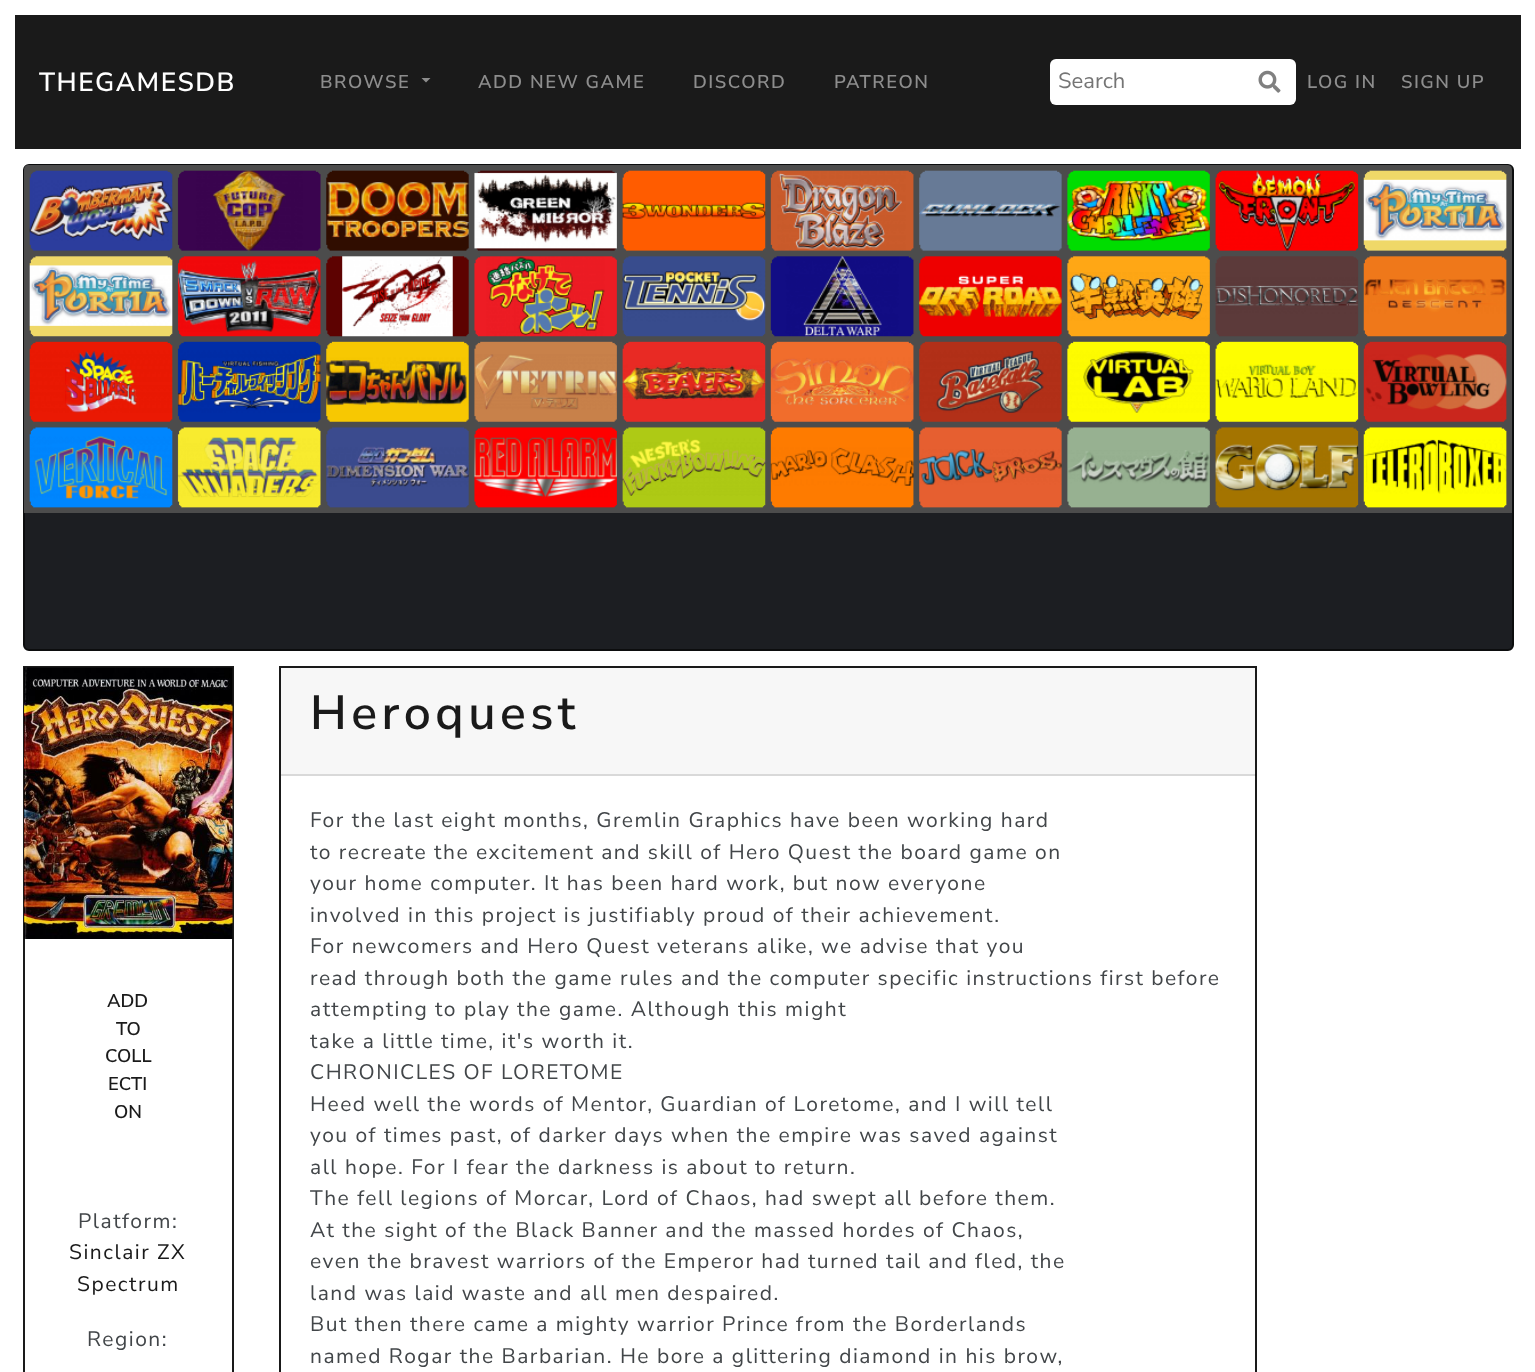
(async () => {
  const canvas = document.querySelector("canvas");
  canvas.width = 1535;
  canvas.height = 1372;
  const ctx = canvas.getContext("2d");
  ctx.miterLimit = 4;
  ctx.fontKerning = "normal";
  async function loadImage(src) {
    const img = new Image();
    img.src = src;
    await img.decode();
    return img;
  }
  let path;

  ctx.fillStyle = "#ffffff";
  ctx.fillRect(0, 0, 1535, 1372);
  ctx.fillStyle = "#1a1a1a";
  ctx.fillRect(15, 15, 1506, 134);
  ctx.fillStyle = "#8d8d8d";
  path = new Path2D("M421.5 78H430.5L426 82.5Z");
  ctx.fill(path);
  ctx.fillStyle = "#ffffff";
  ctx.beginPath();
  ctx.roundRect(1050, 59, 246, 46, 6);
  ctx.fill();
  ctx.drawImage(await loadImage("img/1.png"), 1258, 70, 23, 23);
  ctx.fillStyle = "#1c1e22";
  ctx.beginPath();
  ctx.roundRect(24, 165, 1489, 485, 5);
  ctx.fill();
  ctx.strokeStyle = "#0c0d0e";
  ctx.lineWidth = 2;
  ctx.stroke();
  ctx.drawImage(await loadImage("img/2.png"), 24, 165, 1488, 348);
  ctx.strokeStyle = "#1a1a1a";
  ctx.strokeRect(24, 667, 209, 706);
  ctx.drawImage(await loadImage("img/3.png"), 24, 667, 209, 272);
  ctx.strokeRect(280, 667, 976, 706);
  ctx.fillStyle = "rgba(0, 0, 0, 0.03)";
  ctx.fillRect(281, 668, 974, 108);
  ctx.fillStyle = "rgba(0, 0, 0, 0.12)";
  ctx.fillRect(281, 774, 975, 2);
  ctx.letterSpacing = "1.5px";
  ctx.font = "600 26.25px Nunito Sans";
  ctx.fillStyle = "#ffffff";
  ctx.fillText("THEGAMESDB", 39, 91);
  ctx.font = "600 18.4px Nunito Sans";
  ctx.fillStyle = "#8d8d8d";
  for (const [text, x, y] of [
    ["BROWSE", 320, 88],
    ["ADD NEW GAME", 478, 88],
    ["DISCORD", 693, 88],
    ["PATREON", 834, 88],
  ]) {
    ctx.fillText(text, x, y);
  }
  ctx.letterSpacing = "0px";
  ctx.font = "22px Nunito Sans";
  ctx.fillStyle = "#757575";
  ctx.fillText("Search", 1058, 88);
  ctx.letterSpacing = "1.5px";
  ctx.font = "600 18.4px Nunito Sans";
  ctx.fillStyle = "#8d8d8d";
  ctx.fillText("LOG IN", 1307, 88);
  ctx.fillText("SIGN UP", 1401, 88);
  ctx.letterSpacing = "0px";
  ctx.fillStyle = "#1a1a1a";
  for (const [text, x, y] of [
    ["ADD", 107, 1007],
    ["TO", 116, 1035],
    ["COLL", 105, 1062],
    ["ECTI", 108, 1090],
    ["ON", 114, 1118],
  ]) {
    ctx.fillText(text, x, y);
  }
  ctx.letterSpacing = "1.5px";
  ctx.font = "21px Nunito Sans";
  ctx.fillStyle = "#424649";
  ctx.fillText("Platform:", 78, 1228);
  ctx.fillStyle = "#1a1a1a";
  ctx.fillText("Sinclair ZX", 69, 1259);
  ctx.fillText("Spectrum", 77, 1291);
  ctx.fillStyle = "#424649";
  ctx.fillText("Region:", 87, 1346);
  ctx.letterSpacing = "4.5px";
  ctx.font = "600 48px Nunito Sans";
  ctx.fillStyle = "#1a1a1a";
  ctx.fillText("Heroquest", 310, 729);
  ctx.letterSpacing = "1.5px";
  ctx.font = "21px Nunito Sans";
  ctx.fillStyle = "#424649";
  for (const [text, x, y] of [
    ["For the last eight months, Gremlin Graphics have been working hard", 310, 827],
    ["to recreate the excitement and skill of Hero Quest the board game on", 310, 859],
    ["your home computer. It has been hard work, but now everyone", 310, 890],
    ["involved in this project is justifiably proud of their achievement.", 310, 922],
    ["For newcomers and Hero Quest veterans alike, we advise that you", 310, 953],
    ["read through both the game rules and the computer specific instructions first before", 310, 985],
    ["attempting to play the game. Although this might", 310, 1016],
    ["take a little time, it's worth it.", 310, 1048],
    ["CHRONICLES OF LORETOME", 310, 1079],
    ["Heed well the words of Mentor, Guardian of Loretome, and I will tell", 310, 1111],
    ["you of times past, of darker days when the empire was saved against", 310, 1142],
    ["all hope. For I fear the darkness is about to return.", 310, 1174],
    ["The fell legions of Morcar, Lord of Chaos, had swept all before them.", 310, 1205],
    ["At the sight of the Black Banner and the massed hordes of Chaos,", 310, 1237],
    ["even the bravest warriors of the Emperor had turned tail and fled, the", 310, 1268],
    ["land was laid waste and all men despaired.", 310, 1300],
    ["But then there came a mighty warrior Prince from the Borderlands", 310, 1331],
    ["named Rogar the Barbarian. He bore a glittering diamond in his brow,", 310, 1363],
  ]) {
    ctx.fillText(text, x, y);
  }
})();
